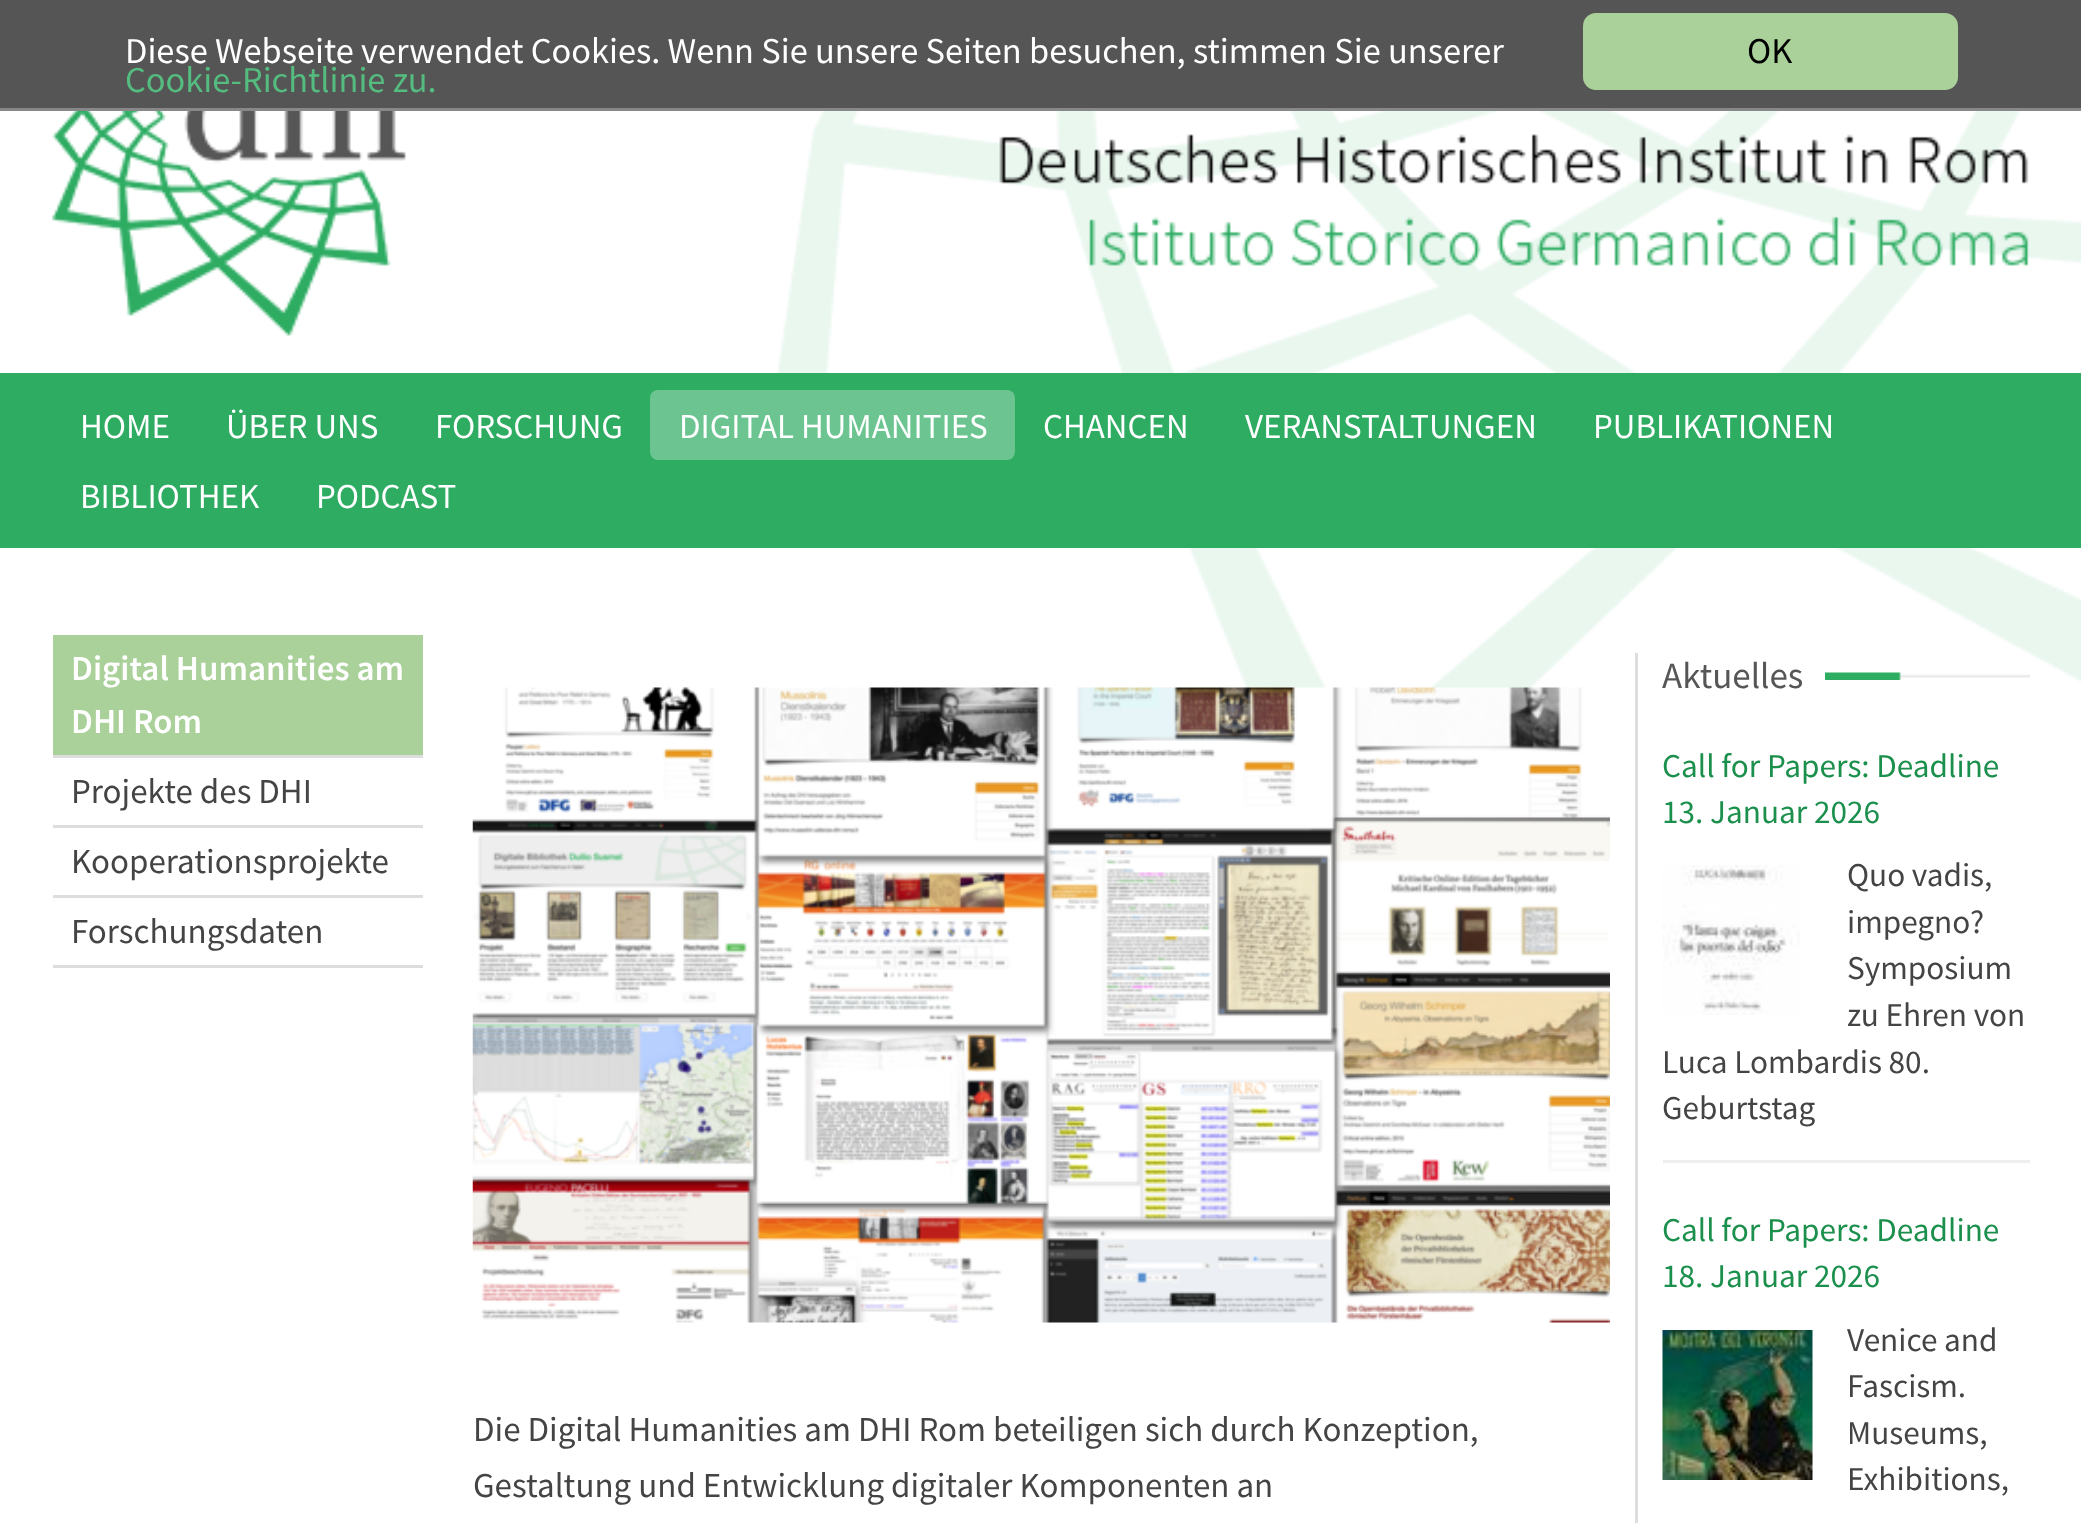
(async () => {
  const canvas = document.querySelector("canvas");
  canvas.width = 2081;
  canvas.height = 1523;
  const ctx = canvas.getContext("2d");
  ctx.miterLimit = 4;
  ctx.fontKerning = "normal";
  async function loadImage(src) {
    const img = new Image();
    img.src = src;
    await img.decode();
    return img;
  }

  ctx.fillStyle = "#ffffff";
  ctx.fillRect(0, 0, 2081, 1523);
  ctx.drawImage(await loadImage("img/1.png"), 777, 111, 1304, 577);
  ctx.fillStyle = "#555555";
  ctx.fillRect(0, 0, 2081, 108);
  ctx.fillStyle = "#888888";
  ctx.fillRect(0, 108, 2081, 3);
  ctx.fillStyle = "#aad19a";
  ctx.beginPath();
  ctx.roundRect(1583, 13, 375, 77, 13);
  ctx.fill();
  ctx.drawImage(await loadImage("img/2.png"), 52, 111, 354, 225);
  ctx.drawImage(await loadImage("img/3.png"), 999, 134, 1030, 132);
  ctx.fillStyle = "#2dac62";
  ctx.fillRect(0, 373, 2081, 175);
  ctx.fillStyle = "#6cc591";
  ctx.beginPath();
  ctx.roundRect(650, 390, 365, 70, 8);
  ctx.fill();
  for (const [x, y, w, h, color] of [
    [53, 635, 370, 120, "#aad19a"],
    [53, 755, 370, 3, "#dddddd"],
    [53, 825, 370, 3, "#dddddd"],
    [53, 895, 370, 3, "#dddddd"],
    [53, 965, 370, 3, "#dddddd"],
  ]) {
    ctx.fillStyle = color;
    ctx.fillRect(x, y, w, h);
  }
  ctx.drawImage(await loadImage("img/4.png"), 472, 687, 1138, 636);
  ctx.fillRect(1635, 653, 3, 870);
  ctx.drawImage(await loadImage("img/5.png"), 1825, 672, 205, 8);
  ctx.drawImage(await loadImage("img/6.png"), 1662, 865, 138, 150);
  ctx.fillStyle = "#eeeeee";
  ctx.fillRect(1663, 1160, 367, 3);
  ctx.drawImage(await loadImage("img/7.png"), 1662, 1330, 151, 150);
  ctx.font = "36.4px Source Sans Pro";
  ctx.fillStyle = "#ffffff";
  ctx.fillText("Diese Webseite verwendet Cookies. Wenn Sie unsere Seiten besuchen, stimmen Sie unserer", 125, 63);
  ctx.fillStyle = "#55bc80";
  ctx.fillText("Cookie-Richtlinie zu.", 125, 92);
  ctx.fillStyle = "#000000";
  ctx.fillText("OK", 1747, 63);
  ctx.font = "35px Source Sans Pro";
  ctx.fillStyle = "#ffffff";
  for (const [text, x, y] of [
    ["HOME", 80, 438],
    ["ÜBER UNS", 226, 438],
    ["FORSCHUNG", 435, 438],
    ["DIGITAL HUMANITIES", 679, 438],
    ["CHANCEN", 1043, 438],
    ["VERANSTALTUNGEN", 1245, 438],
    ["PUBLIKATIONEN", 1593, 438],
    ["BIBLIOTHEK", 80, 508],
    ["PODCAST", 316, 508],
  ]) {
    ctx.fillText(text, x, y);
  }
  ctx.font = "600 35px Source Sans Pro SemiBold";
  ctx.fillText("Digital Humanities am", 71, 680);
  ctx.fillText("DHI Rom", 71, 733);
  ctx.font = "35px Source Sans Pro";
  ctx.fillStyle = "#444444";
  for (const [text, x, y] of [
    ["Projekte des DHI", 71, 803],
    ["Kooperationsprojekte", 71, 873],
    ["Forschungsdaten", 71, 943],
    ["Die Digital Humanities am DHI Rom beteiligen sich durch Konzeption,", 473, 1441],
    ["Gestaltung und Entwicklung digitaler Komponenten an", 473, 1497],
  ]) {
    ctx.fillText(text, x, y);
  }
  ctx.font = "37px Source Sans Pro";
  ctx.fillStyle = "#565656";
  ctx.fillText("Aktuelles", 1662, 688);
  ctx.font = "33.25px Source Sans Pro";
  ctx.fillStyle = "#1b8f4c";
  ctx.fillText("Call for Papers: Deadline", 1662, 777);
  ctx.fillText("13. Januar 2026", 1662, 823);
  ctx.fillStyle = "#444444";
  for (const [text, x, y] of [
    ["Quo vadis,", 1847, 886],
    ["impegno?", 1847, 933],
    ["Symposium", 1847, 979],
    ["zu Ehren von", 1847, 1026],
    ["Luca Lombardis 80.", 1662, 1073],
    ["Geburtstag", 1662, 1119],
  ]) {
    ctx.fillText(text, x, y);
  }
  ctx.fillStyle = "#1b8f4c";
  ctx.fillText("Call for Papers: Deadline", 1662, 1241);
  ctx.fillText("18. Januar 2026", 1662, 1287);
  ctx.fillStyle = "#444444";
  for (const [text, x, y] of [
    ["Venice and", 1847, 1351],
    ["Fascism.", 1847, 1397],
    ["Museums,", 1847, 1444],
    ["Exhibitions,", 1847, 1490],
  ]) {
    ctx.fillText(text, x, y);
  }
})();
